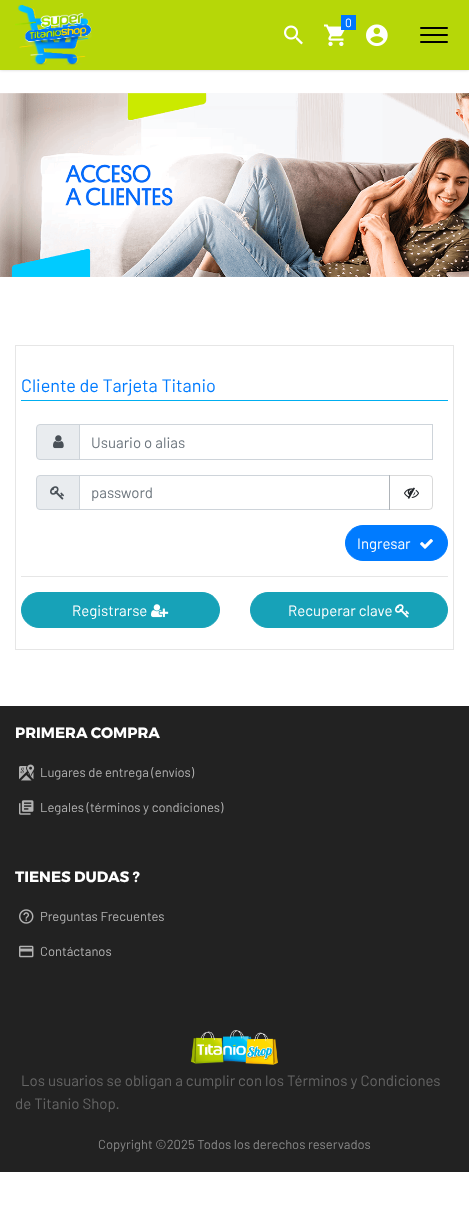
(async () => {
  const canvas = document.querySelector("canvas");
  canvas.width = 469;
  canvas.height = 1210;
  const ctx = canvas.getContext("2d");
  ctx.miterLimit = 4;
  ctx.fontKerning = "normal";
  async function loadImage(src) {
    const img = new Image();
    img.src = src;
    await img.decode();
    return img;
  }

  ctx.fillStyle = "#ffffff";
  ctx.fillRect(0, 0, 469, 1210);
  ctx.fillStyle = "rgba(0, 0, 0, 0.2)";
  ctx.filter = "blur(1.5px)";
  ctx.beginPath();
  ctx.rect(0, 0, 469, 70);
  ctx.fill();
  ctx.filter = "none";
  ctx.fillStyle = "#b6d708";
  ctx.fillRect(0, 0, 469, 70);
  ctx.drawImage(await loadImage("img/1.png"), 15, 5, 77, 60);
  ctx.drawImage(await loadImage("img/2.png"), 324, 24, 21, 23);
  ctx.fillStyle = "#0076ff";
  ctx.fillRect(341, 15, 15, 15);
  ctx.drawImage(await loadImage("img/3.png"), 284, 25, 19, 20);
  ctx.drawImage(await loadImage("img/4.png"), 366, 24, 22, 23);
  ctx.fillStyle = "#000000";
  ctx.beginPath();
  ctx.roundRect(420, 34, 28, 2, 1);
  ctx.fill();
  ctx.beginPath();
  ctx.roundRect(420, 27, 28, 2, 1);
  ctx.fill();
  ctx.beginPath();
  ctx.roundRect(420, 41, 28, 2, 1);
  ctx.fill();
  ctx.drawImage(await loadImage("img/5.png"), 0, 93, 469, 184);
  ctx.strokeStyle = "#e6e6e6";
  ctx.strokeRect(15.5, 345.5, 438, 304);
  ctx.fillStyle = "#00aef0";
  ctx.fillRect(21, 400, 427, 1);
  ctx.fillStyle = "#e9ecef";
  ctx.beginPath();
  ctx.roundRect(36.5, 424.5, 43, 35, [3.5, 0, 0, 3.5]);
  ctx.fill();
  ctx.strokeStyle = "#ced4da";
  ctx.stroke();
  ctx.drawImage(await loadImage("img/6.png"), 53, 435, 11, 14);
  ctx.strokeRect(79.5, 424.5, 353, 35);
  ctx.beginPath();
  ctx.roundRect(36.5, 475.5, 43, 34, [3.5, 0, 0, 3.5]);
  ctx.fill();
  ctx.stroke();
  ctx.drawImage(await loadImage("img/7.png"), 50, 486, 14, 14);
  ctx.strokeRect(79.5, 475.5, 310, 34);
  ctx.beginPath();
  ctx.roundRect(389.5, 475.5, 43, 34, [0, 3.5, 3.5, 0]);
  ctx.strokeStyle = "rgba(0, 0, 0, 0.15)";
  ctx.stroke();
  ctx.drawImage(await loadImage("img/8.png"), 404, 487, 15, 12);
  ctx.fillStyle = "#007bff";
  ctx.beginPath();
  ctx.roundRect(345.5, 525.5, 102, 35, 17.5);
  ctx.fill();
  ctx.strokeStyle = "#007bff";
  ctx.stroke();
  ctx.drawImage(await loadImage("img/9.png"), 420, 539, 13, 10);
  ctx.fillStyle = "#e6e6e6";
  ctx.fillRect(21, 576, 427, 1);
  ctx.fillStyle = "#17a2b8";
  ctx.beginPath();
  ctx.roundRect(21.5, 592.5, 198, 35, 17.5);
  ctx.fill();
  ctx.strokeStyle = "#17a2b8";
  ctx.stroke();
  ctx.drawImage(await loadImage("img/10.png"), 151, 604, 18, 14);
  ctx.beginPath();
  ctx.roundRect(250.5, 592.5, 197, 35, 17.5);
  ctx.fill();
  ctx.stroke();
  ctx.drawImage(await loadImage("img/11.png"), 395, 604, 14, 14);
  ctx.fillStyle = "#222222";
  ctx.fillRect(0, 706, 469, 466);
  ctx.drawImage(await loadImage("img/12.png"), 19, 764, 16, 17);
  ctx.drawImage(await loadImage("img/13.png"), 19, 800, 15, 15);
  ctx.drawImage(await loadImage("img/14.png"), 19, 909, 15, 15);
  ctx.drawImage(await loadImage("img/15.png"), 19, 945, 15, 13);
  ctx.drawImage(await loadImage("img/16.png"), 191, 1030, 87, 35);
  ctx.font = "12px 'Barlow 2'";
  ctx.fillStyle = "#ffffff";
  ctx.fillText("0", 345, 27);
  ctx.font = "18px Barlow";
  ctx.fillStyle = "#007bff";
  ctx.fillText("Cliente de Tarjeta Titanio", 21, 392);
  ctx.font = "15px Barlow";
  ctx.fillStyle = "#6c757d";
  ctx.fillText("Usuario o alias", 91, 448);
  ctx.fillText("password", 91, 498);
  ctx.fillStyle = "#ffffff";
  for (const [text, x, y] of [
    ["Ingresar", 357, 549],
    ["Registrarse", 72, 616],
    ["Recuperar clave", 288, 616],
  ]) {
    ctx.fillText(text, x, y);
  }
  ctx.font = "bold 15px Montserrat";
  ctx.fillText("PRIMERA COMPRA", 15, 738);
  ctx.font = "13px 'Barlow 2'";
  ctx.fillStyle = "#b2b2b2";
  ctx.fillText("Lugares de entrega (envíos)", 40, 777);
  ctx.fillText("Legales (términos y condiciones)", 40, 812);
  ctx.font = "bold 15px Montserrat";
  ctx.fillStyle = "#ffffff";
  ctx.fillText("TIENES DUDAS ?", 15, 882);
  ctx.font = "13px 'Barlow 2'";
  ctx.fillStyle = "#b2b2b2";
  ctx.fillText("Preguntas Frecuentes", 40, 921);
  ctx.fillText("Contáctanos", 40, 956);
  ctx.font = "15px Barlow";
  ctx.fillStyle = "#666666";
  ctx.fillText("Los usuarios se obligan a cumplir con los Términos y Condiciones", 21, 1086);
  ctx.fillText("de Titanio Shop.", 15, 1109);
  ctx.font = "13px 'Barlow 2'";
  ctx.fillStyle = "#888888";
  ctx.fillText("Copyright ©2025 Todos los derechos reservados", 98, 1149);
})();
